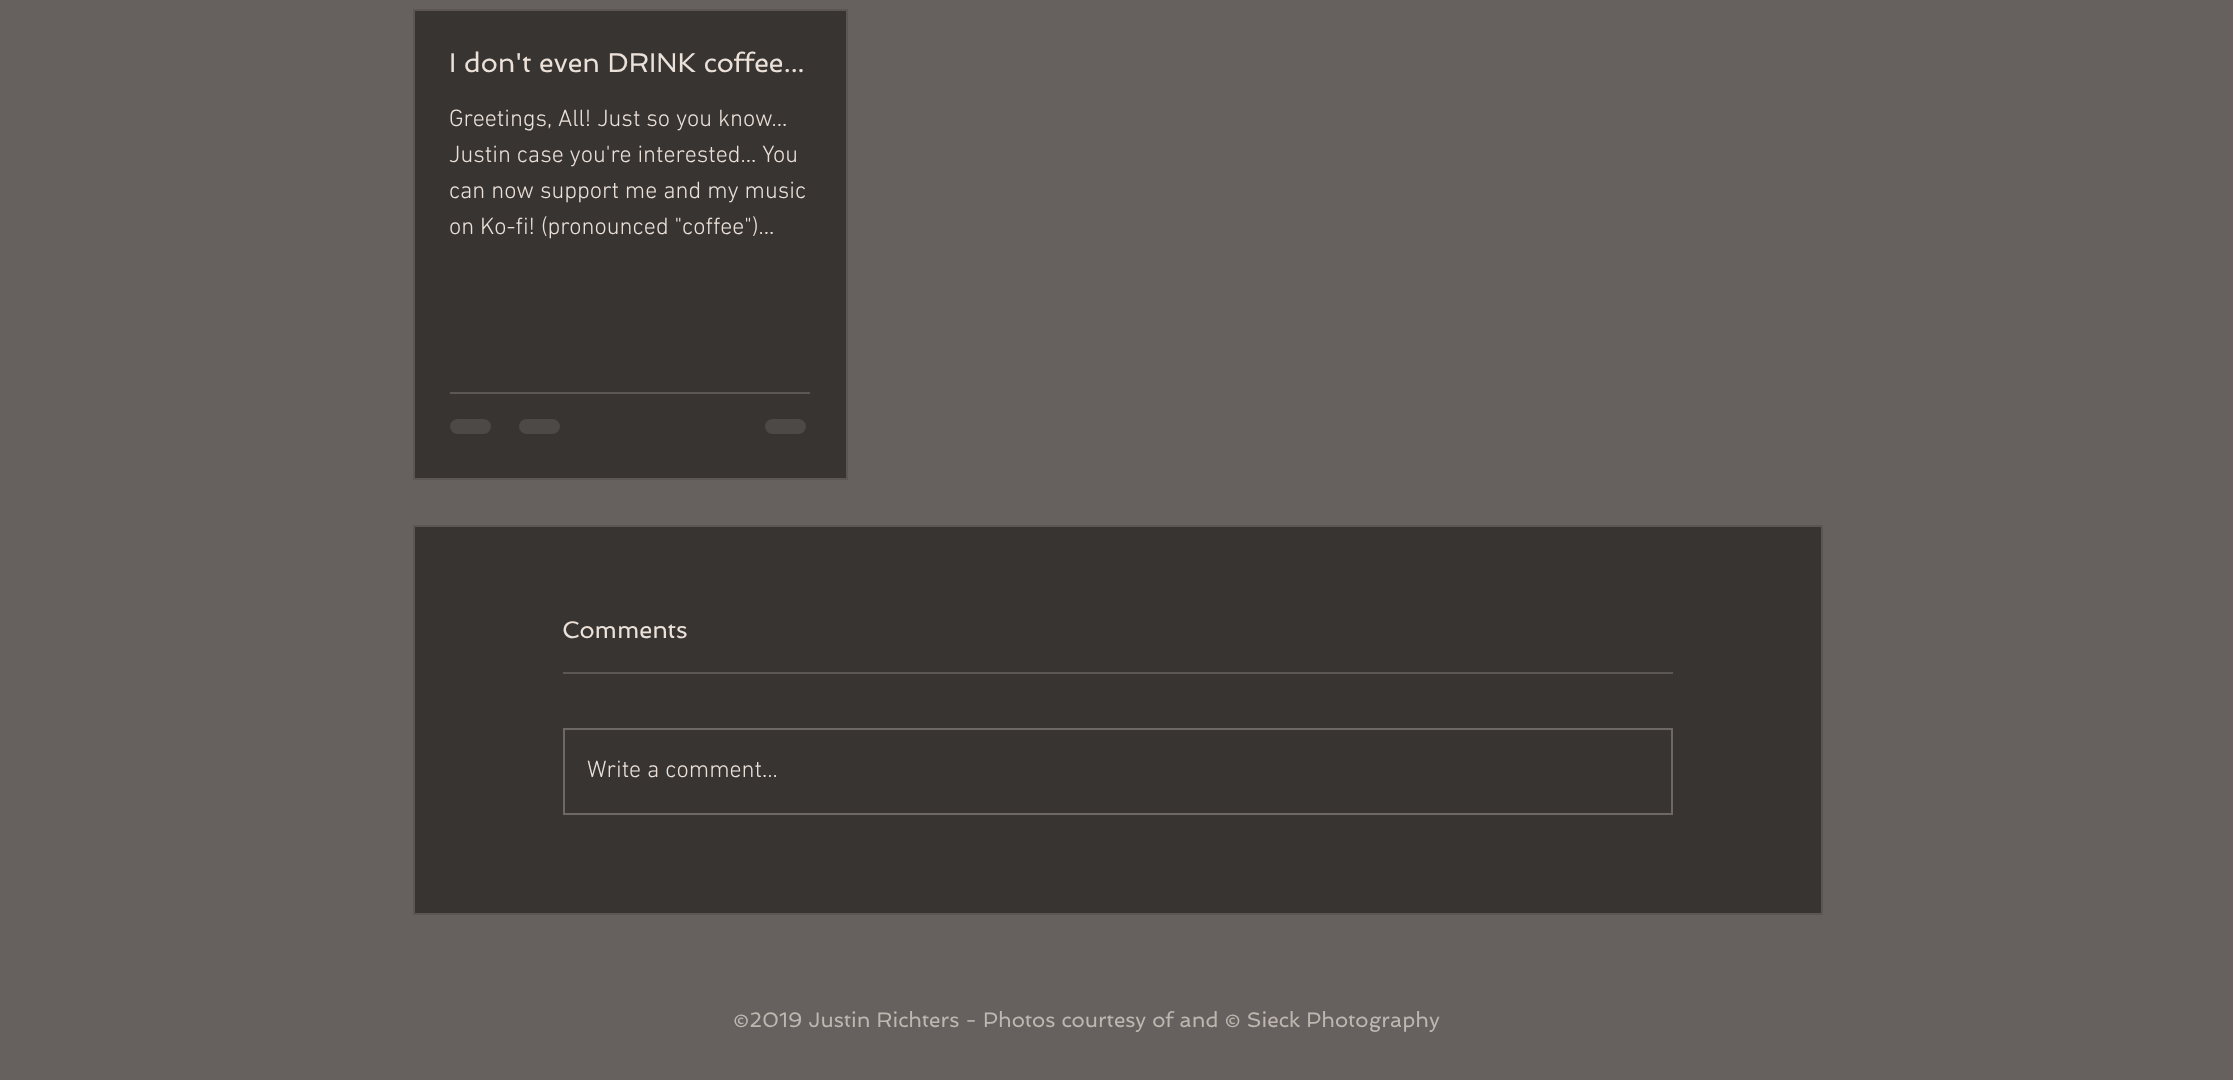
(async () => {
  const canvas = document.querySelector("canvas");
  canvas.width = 2233;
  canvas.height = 1080;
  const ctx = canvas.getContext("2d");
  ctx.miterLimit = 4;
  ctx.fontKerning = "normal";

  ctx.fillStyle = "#66615e";
  ctx.fillRect(0, 0, 2233, 1080);
  ctx.fillStyle = "#383432";
  ctx.beginPath();
  ctx.rect(414, 10, 433, 469);
  ctx.fill();
  ctx.strokeStyle = "#5b5653";
  ctx.lineWidth = 2;
  ctx.stroke();
  ctx.fillStyle = "#5c5753";
  ctx.fillRect(450, 392, 360, 2);
  ctx.fillStyle = "#4d4946";
  ctx.beginPath();
  ctx.roundRect(450, 419, 41, 15, 7.5);
  ctx.fill();
  ctx.beginPath();
  ctx.roundRect(519, 419, 41, 15, 7.5);
  ctx.fill();
  ctx.beginPath();
  ctx.roundRect(765, 419, 41, 15, 7.5);
  ctx.fill();
  ctx.fillStyle = "#383432";
  ctx.beginPath();
  ctx.rect(414, 526, 1408, 388);
  ctx.fill();
  ctx.stroke();
  ctx.fillStyle = "#5c5753";
  ctx.fillRect(563, 672, 1110, 2);
  ctx.strokeStyle = "#6e6864";
  ctx.strokeRect(564, 729, 1108, 85);
  ctx.font = "27px Spinnaker";
  ctx.fillStyle = "#ebe1d9";
  ctx.fillText("I don't even DRINK coffee...", 449, 72);
  ctx.font = "300 24px 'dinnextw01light'";
  for (const [text, x, y] of [
    ["Greetings, All! Just so you know...", 449, 126],
    ["Justin case you're interested... You", 449, 162],
    ["can now support me and my music", 449, 198],
    ["on Ko-fi! (pronounced \"coffee\")...", 449, 234],
  ]) {
    ctx.fillText(text, x, y);
  }
  ctx.font = "24px Spinnaker";
  ctx.fillText("Comments", 562, 638);
  ctx.font = "300 24px 'dinnextw01light'";
  ctx.fillText("Write a comment...", 587, 777);
  ctx.font = "21px Spinnaker";
  ctx.fillStyle = "#beb6b0";
  ctx.fillText("©2019 Justin Richters - Photos courtesy of and © Sieck Photography", 733, 1027);
})();
